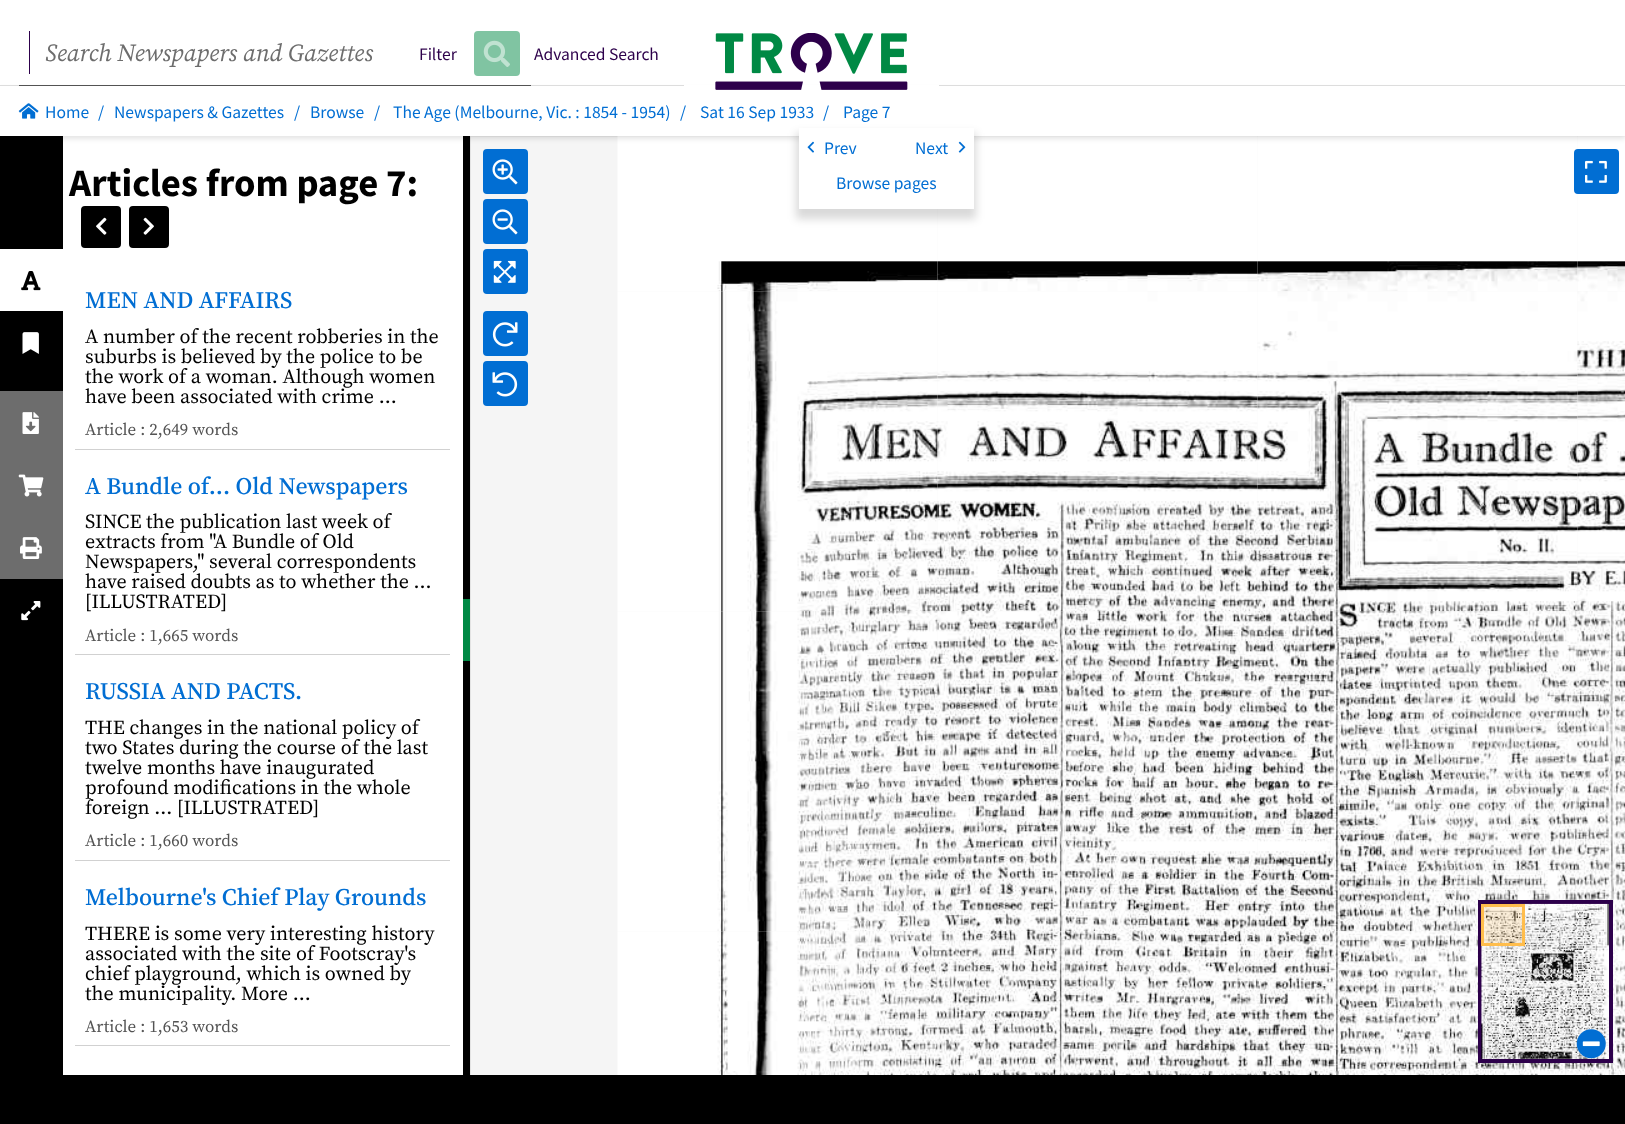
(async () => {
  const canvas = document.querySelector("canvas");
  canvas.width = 1625;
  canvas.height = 1124;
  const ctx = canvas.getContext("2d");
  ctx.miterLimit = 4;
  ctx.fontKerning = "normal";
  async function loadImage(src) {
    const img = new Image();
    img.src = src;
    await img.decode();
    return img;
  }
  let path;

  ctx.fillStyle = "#ffffff";
  ctx.fillRect(0, 0, 1625, 1124);
  for (const [x, y, w, h, color] of [
    [0, 136, 63, 939, "#000000"],
    [463, 136, 7, 939, "#000000"],
    [471, 137, 1154, 938, "#f5f5f5"],
    [471, 136, 1154, 1, "#e9e9e9"],
    [470, 136, 1, 939, "#e3e3e3"],
  ]) {
    ctx.fillStyle = color;
    ctx.fillRect(x, y, w, h);
  }
  ctx.drawImage(await loadImage("img/14.png"), 617, 136, 321, 156);
  ctx.drawImage(await loadImage("img/15.png"), 937, 136, 321, 155);
  ctx.drawImage(await loadImage("img/18.png"), 617, 291, 321, 321);
  ctx.drawImage(await loadImage("img/22.png"), 617, 611, 321, 321);
  ctx.drawImage(await loadImage("img/19.png"), 937, 291, 321, 321);
  ctx.drawImage(await loadImage("img/16.png"), 1257, 136, 321, 156);
  ctx.drawImage(await loadImage("img/17.png"), 1577, 136, 48, 155);
  ctx.fillStyle = "rgba(0, 0, 0, 0.1)";
  ctx.filter = "blur(2.5px)";
  ctx.beginPath();
  ctx.rect(0, 89, 1625, 50);
  ctx.fill();
  ctx.filter = "none";
  ctx.fillStyle = "#dddddd";
  ctx.fillRect(0, 85, 1625, 1);
  ctx.fillStyle = "#2d004b";
  ctx.fillRect(29, 31, 1, 43);
  ctx.fillStyle = "#80c4a2";
  ctx.beginPath();
  ctx.roundRect(475.5, 32.5, 43, 42, 2.5);
  ctx.fill();
  ctx.strokeStyle = "#80c4a2";
  ctx.lineWidth = 3;
  ctx.stroke();
  ctx.drawImage(await loadImage("img/1.png"), 483, 40, 27, 27);
  for (const [x, y, w, h, color] of [
    [19, 85, 512, 1, "#535353"],
    [684, 85, 255, 1, "#ffffff"],
    [0, 86, 1625, 50, "#ffffff"],
  ]) {
    ctx.fillStyle = color;
    ctx.fillRect(x, y, w, h);
  }
  ctx.drawImage(await loadImage("img/2.png"), 715, 33, 193, 57);
  ctx.drawImage(await loadImage("img/3.png"), 18, 103, 21, 16);
  ctx.fillStyle = "rgba(0, 0, 0, 0.15)";
  ctx.filter = "blur(4px)";
  ctx.beginPath();
  ctx.rect(796, 133, 180, 86);
  ctx.fill();
  ctx.filter = "none";
  ctx.fillStyle = "#ffffff";
  ctx.fillRect(799, 128, 175, 81);
  ctx.drawImage(await loadImage("img/4.png"), 807, 141, 7, 12);
  ctx.drawImage(await loadImage("img/5.png"), 958, 141, 8, 12);
  ctx.fillRect(0, 249, 63, 62);
  ctx.drawImage(await loadImage("img/6.png"), 21, 271, 20, 20);
  ctx.drawImage(await loadImage("img/7.png"), 22, 332, 17, 22);
  ctx.fillStyle = "#6d6d6d";
  ctx.fillRect(0, 391, 63, 188);
  ctx.drawImage(await loadImage("img/8.png"), 22, 412, 17, 22);
  ctx.drawImage(await loadImage("img/9.png"), 18, 474, 26, 23);
  ctx.drawImage(await loadImage("img/10.png"), 20, 537, 22, 22);
  ctx.drawImage(await loadImage("img/11.png"), 21, 601, 20, 20);
  ctx.fillStyle = "#000000";
  ctx.beginPath();
  ctx.roundRect(82.5, 207.5, 37, 39, 2.5);
  ctx.fill();
  ctx.strokeStyle = "#000000";
  ctx.stroke();
  ctx.drawImage(await loadImage("img/12.png"), 96, 217, 11, 18);
  ctx.beginPath();
  ctx.roundRect(130.5, 207.5, 37, 39, 2.5);
  ctx.fill();
  ctx.stroke();
  ctx.drawImage(await loadImage("img/13.png"), 143, 217, 11, 18);
  for (const [x, y, w, h, color] of [
    [75, 449, 375, 1, "#d1d1d1"],
    [75, 654, 375, 1, "#d1d1d1"],
    [75, 860, 375, 1, "#d1d1d1"],
    [75, 1045, 375, 1, "#d1d1d1"],
    [463, 599, 7, 62, "#008944"],
  ]) {
    ctx.fillStyle = color;
    ctx.fillRect(x, y, w, h);
  }
  ctx.drawImage(await loadImage("img/26.png"), 617, 931, 321, 144);
  ctx.drawImage(await loadImage("img/23.png"), 937, 611, 321, 321);
  ctx.drawImage(await loadImage("img/20.png"), 1257, 291, 321, 321);
  ctx.drawImage(await loadImage("img/27.png"), 937, 931, 321, 144);
  ctx.drawImage(await loadImage("img/24.png"), 1257, 611, 321, 321);
  ctx.drawImage(await loadImage("img/21.png"), 1577, 291, 48, 321);
  ctx.drawImage(await loadImage("img/28.png"), 1257, 931, 321, 144);
  ctx.drawImage(await loadImage("img/25.png"), 1577, 611, 48, 321);
  ctx.drawImage(await loadImage("img/29.png"), 1577, 931, 48, 144);
  ctx.fillStyle = "#016ed3";
  ctx.beginPath();
  ctx.roundRect(484.5, 150.5, 42, 42, 2.5);
  ctx.fill();
  ctx.strokeStyle = "#016ed3";
  ctx.stroke();
  ctx.drawImage(await loadImage("img/30.png"), 492, 159, 26, 26);
  ctx.beginPath();
  ctx.roundRect(1575.5, 150.5, 42, 42, 2.5);
  ctx.fill();
  ctx.stroke();
  ctx.drawImage(await loadImage("img/31.png"), 1585, 160, 22, 23);
  ctx.beginPath();
  ctx.roundRect(484.5, 200.5, 42, 42, 2.5);
  ctx.fill();
  ctx.stroke();
  ctx.drawImage(await loadImage("img/32.png"), 492, 209, 26, 26);
  ctx.beginPath();
  ctx.roundRect(484.5, 250.5, 42, 42, 2.5);
  ctx.fill();
  ctx.stroke();
  ctx.drawImage(await loadImage("img/33.png"), 493, 260, 23, 23);
  ctx.beginPath();
  ctx.roundRect(484.5, 312.5, 42, 42, 2.5);
  ctx.fill();
  ctx.stroke();
  ctx.drawImage(await loadImage("img/34.png"), 492, 322, 26, 25);
  ctx.beginPath();
  ctx.roundRect(484.5, 362.5, 42, 42, 2.5);
  ctx.fill();
  ctx.stroke();
  ctx.drawImage(await loadImage("img/35.png"), 492, 372, 26, 25);
  ctx.fillStyle = "#ffffff";
  ctx.beginPath();
  ctx.rect(1480, 902, 131, 159);
  ctx.fill();
  ctx.strokeStyle = "#2d004b";
  ctx.lineWidth = 4;
  ctx.stroke();
  ctx.drawImage(await loadImage("img/36.png"), 1481, 903, 128, 156);
  ctx.fillStyle = "rgba(255, 189, 76, 0.1)";
  ctx.beginPath();
  ctx.rect(1482.5, 905.5, 41, 39);
  ctx.fill();
  ctx.strokeStyle = "#ffbd4c";
  ctx.lineWidth = 3;
  ctx.stroke();
  ctx.fillRect(1484, 907, 38, 36);
  ctx.fillStyle = "#ffffff";
  path = new Path2D("M1581 1033.5C1583.5 1031 1586.5 1029.5 1590 1029.5C1603.5 1028 1611 1044.5 1601.5 1054C1592 1063.5 1575.5 1056 1577 1042.5C1577 1039 1578.5 1036 1581 1033.5Z");
  ctx.fill(path);
  ctx.drawImage(await loadImage("img/37.png"), 1576, 1029, 30, 30);
  ctx.fillStyle = "#000000";
  ctx.fillRect(0, 1075, 1625, 49);
  ctx.font = "italic 24.5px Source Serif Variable";
  ctx.fillStyle = "#6d6d6d";
  ctx.fillText("Search Newspapers and Gazettes", 45, 61);
  ctx.font = "17.5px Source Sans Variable";
  ctx.fillStyle = "#2d004b";
  ctx.fillText("Filter", 419, 60);
  ctx.fillText("Advanced Search", 534, 60);
  ctx.fillStyle = "#016ed3";
  for (const [text, x, y] of [
    ["Home", 45, 118],
    ["/", 98, 118],
    ["Newspapers & Gazettes", 114, 118],
    ["/", 294, 118],
    ["Browse", 310, 118],
    ["/", 374, 118],
    ["The Age (Melbourne, Vic. : 1854 - 1954)", 393, 118],
    ["/", 680, 118],
    ["Sat 16 Sep 1933", 700, 118],
    ["/", 823, 118],
    ["Page 7", 843, 118],
    ["Prev", 824, 154],
    ["Next", 915, 154],
    ["Browse pages", 836, 189],
  ]) {
    ctx.fillText(text, x, y);
  }
  ctx.font = "bold 38.75px Source Sans Variable";
  ctx.fillStyle = "#000000";
  ctx.fillText("Articles from page 7:", 69, 196);
  ctx.font = "500 23.75px Source Serif Variable";
  ctx.fillStyle = "#016ed3";
  ctx.fillText("MEN AND AFFAIRS", 85, 308);
  ctx.font = "20px Source Serif Variable";
  ctx.fillStyle = "#000000";
  for (const [text, x, y] of [
    ["A number of the recent robberies in the", 85, 343],
    ["suburbs is believed by the police to be", 85, 363],
    ["the work of a woman. Although women", 85, 383],
    ["have been associated with crime ...", 85, 403],
  ]) {
    ctx.fillText(text, x, y);
  }
  ctx.font = "17px Source Serif Variable";
  ctx.fillStyle = "#535353";
  ctx.fillText("Article : 2,649 words", 85, 435);
  ctx.font = "500 23.75px Source Serif Variable";
  ctx.fillStyle = "#016ed3";
  ctx.fillText("A Bundle of... Old Newspapers", 85, 494);
  ctx.font = "20px Source Serif Variable";
  ctx.fillStyle = "#000000";
  for (const [text, x, y] of [
    ["SINCE the publication last week of", 85, 528],
    ["extracts from \"A Bundle of Old", 85, 548],
    ["Newspapers,\" several correspondents", 85, 568],
    ["have raised doubts as to whether the ...", 85, 588],
    ["[ILLUSTRATED]", 85, 608],
  ]) {
    ctx.fillText(text, x, y);
  }
  ctx.font = "17px Source Serif Variable";
  ctx.fillStyle = "#535353";
  ctx.fillText("Article : 1,665 words", 85, 641);
  ctx.font = "500 23.75px Source Serif Variable";
  ctx.fillStyle = "#016ed3";
  ctx.fillText("RUSSIA AND PACTS.", 85, 699);
  ctx.font = "20px Source Serif Variable";
  ctx.fillStyle = "#000000";
  for (const [text, x, y] of [
    ["THE changes in the national policy of", 85, 734],
    ["two States during the course of the last", 85, 754],
    ["twelve months have inaugurated", 85, 774],
    ["profound modifications in the whole", 85, 794],
    ["foreign ... [ILLUSTRATED]", 85, 814],
  ]) {
    ctx.fillText(text, x, y);
  }
  ctx.font = "17px Source Serif Variable";
  ctx.fillStyle = "#535353";
  ctx.fillText("Article : 1,660 words", 85, 846);
  ctx.font = "500 23.75px Source Serif Variable";
  ctx.fillStyle = "#016ed3";
  ctx.fillText("Melbourne's Chief Play Grounds", 85, 905);
  ctx.font = "20px Source Serif Variable";
  ctx.fillStyle = "#000000";
  for (const [text, x, y] of [
    ["THERE is some very interesting history", 85, 940],
    ["associated with the site of Footscray's", 85, 960],
    ["chief playground, which is owned by", 85, 980],
    ["the municipality. More ...", 85, 1000],
  ]) {
    ctx.fillText(text, x, y);
  }
  ctx.font = "17px Source Serif Variable";
  ctx.fillStyle = "#535353";
  ctx.fillText("Article : 1,653 words", 85, 1032);
})();
